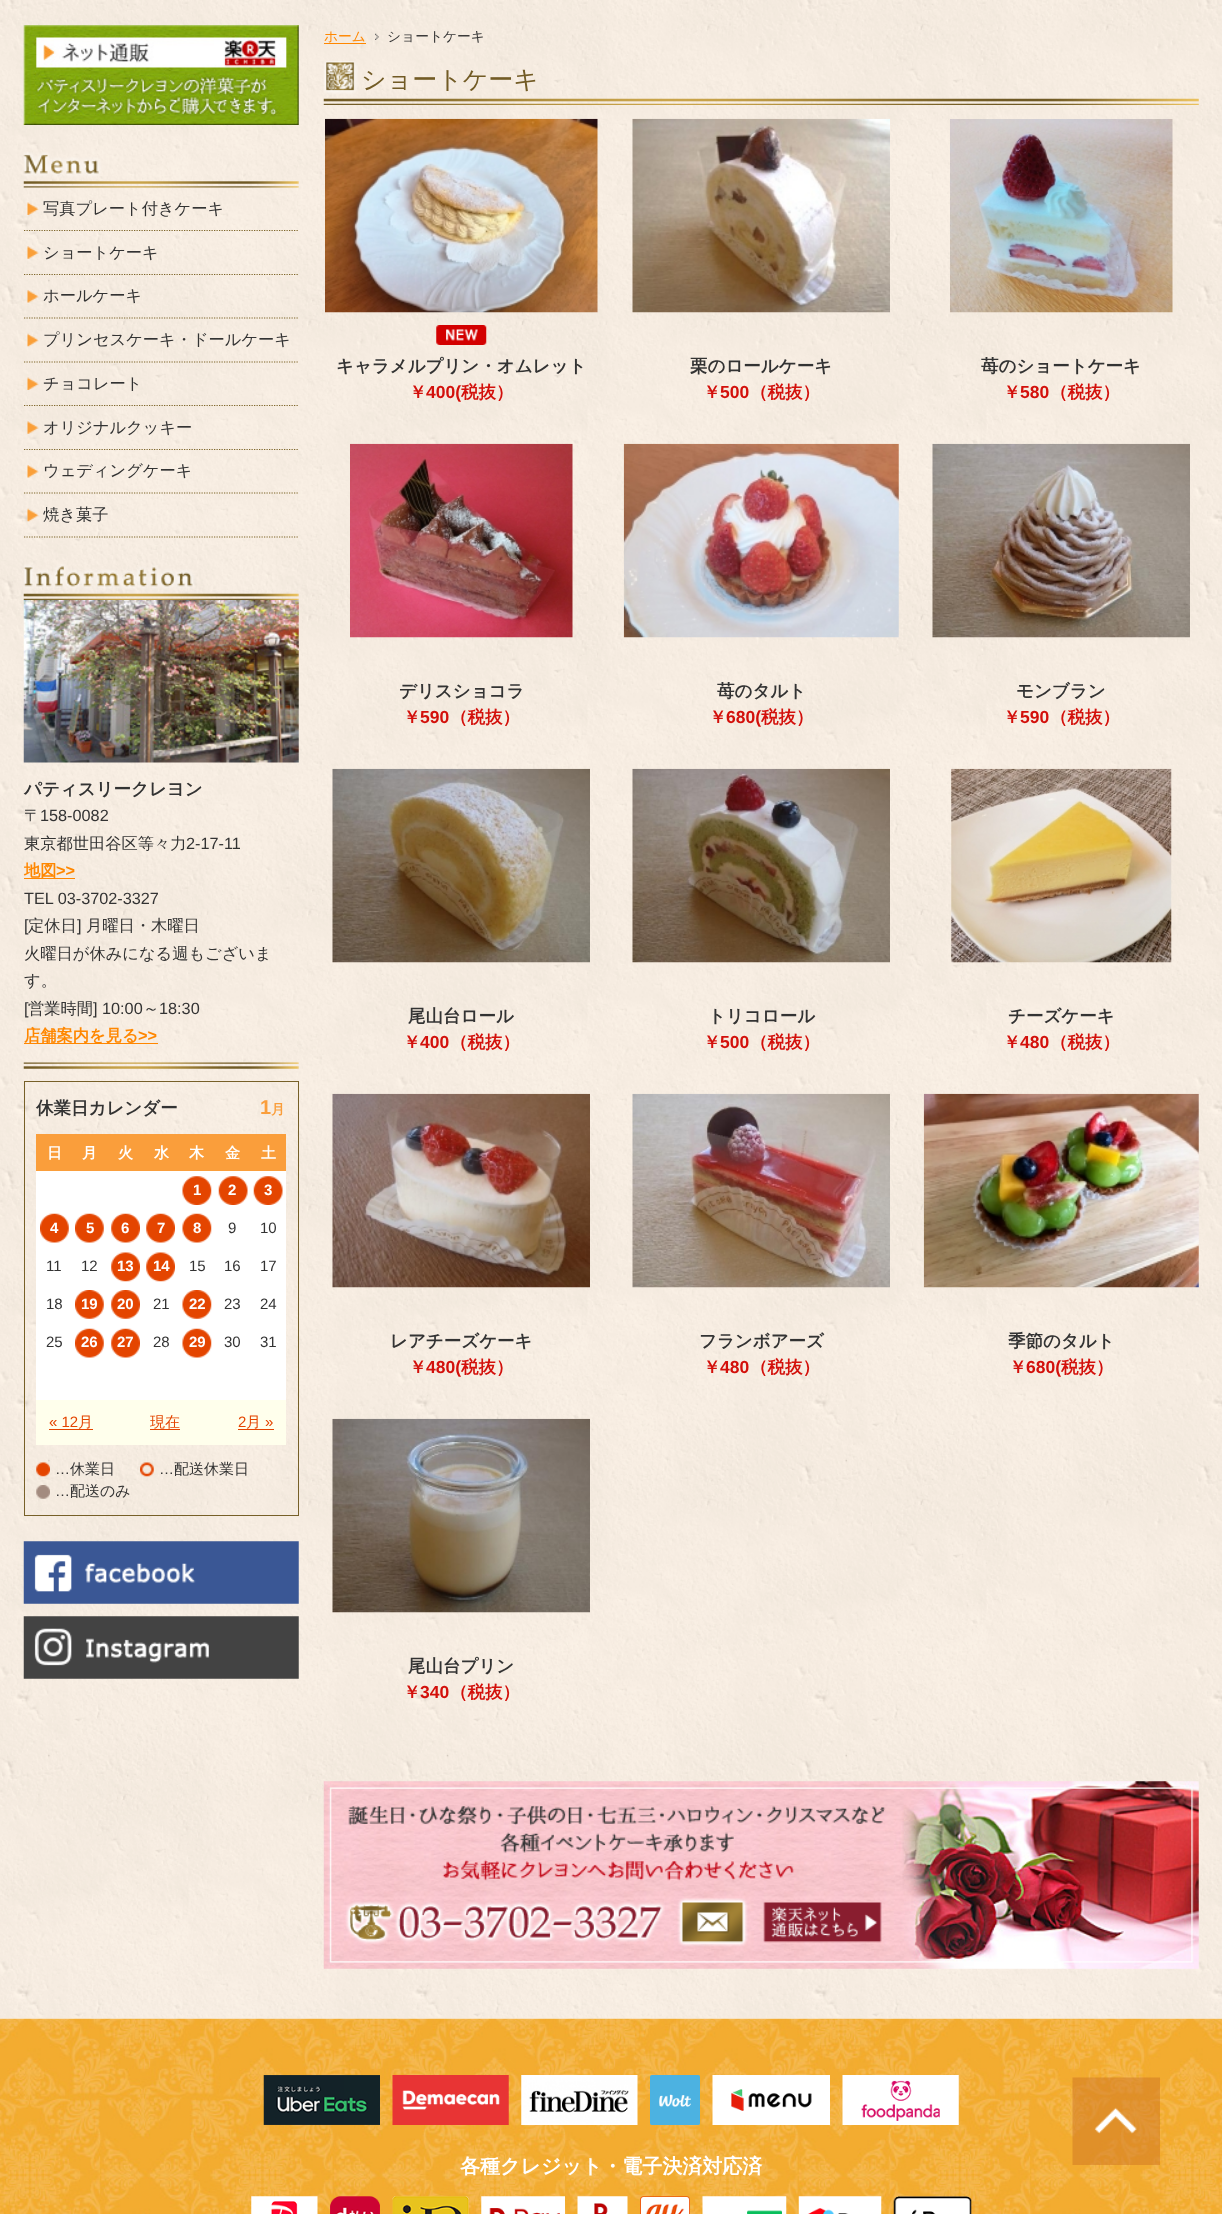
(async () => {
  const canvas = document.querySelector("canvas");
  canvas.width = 1222;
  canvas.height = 2214;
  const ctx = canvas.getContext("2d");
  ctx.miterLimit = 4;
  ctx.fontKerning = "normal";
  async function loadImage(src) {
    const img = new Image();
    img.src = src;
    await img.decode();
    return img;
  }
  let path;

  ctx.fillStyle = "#ffffff";
  ctx.fillRect(0, 0, 1222, 2214);
  ctx.drawImage(await loadImage("img/1.png"), 0, 0, 1222, 2019);
  ctx.drawImage(await loadImage("img/2.png"), 23, 25, 276, 100);
  ctx.drawImage(await loadImage("img/3.png"), 23, 152, 276, 36);
  path = new Path2D("M24 230.5H299");
  ctx.strokeStyle = "#7e662a";
  ctx.lineWidth = 1.2;
  ctx.setLineDash([1.25, 1.25]);
  ctx.stroke(path);
  ctx.drawImage(await loadImage("img/4.png"), 27, 202, 12, 13);
  path = new Path2D("M24 274.5H299");
  ctx.stroke(path);
  ctx.drawImage(await loadImage("img/5.png"), 27, 246, 12, 13);
  path = new Path2D("M24 318H299");
  ctx.stroke(path);
  ctx.drawImage(await loadImage("img/6.png"), 27, 290, 12, 13);
  path = new Path2D("M24 362H299");
  ctx.stroke(path);
  ctx.drawImage(await loadImage("img/7.png"), 27, 333, 12, 14);
  path = new Path2D("M24 405.5H299");
  ctx.stroke(path);
  ctx.drawImage(await loadImage("img/8.png"), 27, 377, 12, 13);
  path = new Path2D("M24 449.5H299");
  ctx.stroke(path);
  ctx.drawImage(await loadImage("img/9.png"), 27, 421, 12, 13);
  path = new Path2D("M24 493H299");
  ctx.stroke(path);
  ctx.drawImage(await loadImage("img/10.png"), 27, 465, 12, 13);
  path = new Path2D("M24 537H299");
  ctx.stroke(path);
  ctx.drawImage(await loadImage("img/11.png"), 27, 508, 12, 14);
  ctx.drawImage(await loadImage("img/12.png"), 23, 1062, 276, 7);
  ctx.drawImage(await loadImage("img/13.png"), 23, 564, 276, 36);
  ctx.drawImage(await loadImage("img/14.png"), 23, 600, 276, 163);
  ctx.fillStyle = "#ff8700";
  ctx.fillRect(24, 878, 51, 1);
  ctx.fillRect(24, 1043, 134, 1);
  ctx.strokeStyle = "#776028";
  ctx.lineWidth = 1;
  ctx.setLineDash([]);
  ctx.strokeRect(24.5, 1081.5, 274, 434);
  ctx.fillStyle = "#ffffff";
  ctx.fillRect(36, 1171, 250, 229);
  ctx.fillStyle = "#fa9e3b";
  ctx.fillRect(36, 1134, 250, 37);
  ctx.drawImage(await loadImage("img/15.png"), 182, 1176, 30, 29);
  ctx.drawImage(await loadImage("img/16.png"), 218, 1176, 30, 29);
  ctx.drawImage(await loadImage("img/16.png"), 253, 1176, 30, 29);
  ctx.drawImage(await loadImage("img/17.png"), 40, 1213, 29, 30);
  ctx.drawImage(await loadImage("img/17.png"), 75, 1213, 29, 30);
  ctx.drawImage(await loadImage("img/18.png"), 111, 1213, 29, 30);
  ctx.drawImage(await loadImage("img/18.png"), 146, 1213, 29, 30);
  ctx.drawImage(await loadImage("img/19.png"), 182, 1213, 30, 30);
  ctx.drawImage(await loadImage("img/20.png"), 111, 1252, 29, 30);
  ctx.drawImage(await loadImage("img/20.png"), 146, 1252, 29, 30);
  ctx.drawImage(await loadImage("img/21.png"), 75, 1290, 29, 29);
  ctx.drawImage(await loadImage("img/22.png"), 111, 1290, 29, 29);
  ctx.drawImage(await loadImage("img/23.png"), 182, 1290, 30, 29);
  ctx.drawImage(await loadImage("img/17.png"), 75, 1328, 29, 30);
  ctx.drawImage(await loadImage("img/18.png"), 111, 1328, 29, 30);
  ctx.drawImage(await loadImage("img/19.png"), 182, 1328, 30, 30);
  for (const [x, y, w, h, color] of [
    [36, 1400, 250, 45, "#ffffec"],
    [49, 1429, 44, 1, "#e44500"],
    [150, 1429, 30, 1, "#e44500"],
    [238, 1429, 36, 1, "#e44500"],
  ]) {
    ctx.fillStyle = color;
    ctx.fillRect(x, y, w, h);
  }
  ctx.drawImage(await loadImage("img/24.png"), 36, 1462, 14, 15);
  ctx.drawImage(await loadImage("img/25.png"), 140, 1462, 14, 15);
  ctx.drawImage(await loadImage("img/26.png"), 36, 1485, 14, 14);
  ctx.drawImage(await loadImage("img/27.png"), 23, 1541, 276, 63);
  ctx.drawImage(await loadImage("img/28.png"), 23, 1616, 276, 63);
  ctx.fillStyle = "#ff8700";
  ctx.fillRect(324, 43, 42, 1);
  ctx.drawImage(await loadImage("img/29.png"), 375, 33, 4, 7);
  ctx.drawImage(await loadImage("img/30.png"), 323, 61, 876, 44);
  ctx.drawImage(await loadImage("img/31.png"), 325, 118, 273, 195);
  ctx.drawImage(await loadImage("img/32.png"), 436, 325, 51, 20);
  ctx.drawImage(await loadImage("img/33.png"), 632, 118, 258, 195);
  ctx.drawImage(await loadImage("img/34.png"), 950, 119, 223, 194);
  ctx.drawImage(await loadImage("img/35.png"), 350, 443, 223, 195);
  ctx.drawImage(await loadImage("img/36.png"), 623, 443, 276, 195);
  ctx.drawImage(await loadImage("img/37.png"), 932, 443, 258, 195);
  ctx.drawImage(await loadImage("img/38.png"), 332, 768, 258, 195);
  ctx.drawImage(await loadImage("img/39.png"), 632, 768, 258, 195);
  ctx.drawImage(await loadImage("img/40.png"), 951, 768, 221, 195);
  ctx.drawImage(await loadImage("img/41.png"), 332, 1093, 258, 195);
  ctx.drawImage(await loadImage("img/42.png"), 632, 1093, 258, 195);
  ctx.drawImage(await loadImage("img/43.png"), 923, 1093, 276, 195);
  ctx.drawImage(await loadImage("img/44.png"), 332, 1418, 258, 195);
  ctx.drawImage(await loadImage("img/45.png"), 323, 1781, 876, 188);
  ctx.drawImage(await loadImage("img/46.png"), 348, 1806, 538, 75);
  ctx.drawImage(await loadImage("img/47.png"), 345, 1901, 320, 43);
  ctx.drawImage(await loadImage("img/48.png"), 677, 1898, 71, 49);
  ctx.drawImage(await loadImage("img/49.png"), 763, 1902, 119, 41);
  ctx.drawImage(await loadImage("img/50.png"), 0, 2018, 1222, 196);
  ctx.drawImage(await loadImage("img/51.png"), 263, 2075, 117, 50);
  ctx.drawImage(await loadImage("img/52.png"), 392, 2075, 117, 50);
  ctx.drawImage(await loadImage("img/53.png"), 521, 2075, 117, 50);
  ctx.drawImage(await loadImage("img/54.png"), 650, 2075, 50, 50);
  ctx.drawImage(await loadImage("img/55.png"), 712, 2075, 118, 50);
  ctx.drawImage(await loadImage("img/56.png"), 842, 2075, 117, 50);
  ctx.drawImage(await loadImage("img/57.png"), 251, 2196, 67, 18);
  ctx.drawImage(await loadImage("img/58.png"), 330, 2196, 50, 18);
  ctx.drawImage(await loadImage("img/59.png"), 392, 2196, 77, 18);
  ctx.drawImage(await loadImage("img/60.png"), 481, 2196, 84, 18);
  ctx.drawImage(await loadImage("img/61.png"), 577, 2196, 51, 18);
  ctx.drawImage(await loadImage("img/62.png"), 640, 2196, 50, 18);
  ctx.drawImage(await loadImage("img/63.png"), 702, 2196, 85, 18);
  ctx.drawImage(await loadImage("img/64.png"), 798, 2196, 84, 18);
  ctx.drawImage(await loadImage("img/65.png"), 893, 2196, 79, 18);
  ctx.drawImage(await loadImage("img/66.png"), 1072, 2077, 88, 88);
  ctx.font = "500 16.25px WenQuanYi Zen Hei";
  ctx.fillStyle = "#333333";
  for (const [text, x, y] of [
    ["写真プレート付きケーキ", 43, 214],
    ["ショートケーキ", 43, 258],
    ["ホールケーキ", 43, 301],
    ["プリンセスケーキ・ドールケーキ", 43, 345],
    ["チョコレート", 43, 389],
    ["オリジナルクッキー", 43, 433],
    ["ウェディングケーキ", 43, 476],
    ["焼き菓子", 43, 520],
  ]) {
    ctx.fillText(text, x, y);
  }
  ctx.font = "bold 17.5px WenQuanYi Zen Hei";
  ctx.fillText("パティスリークレヨン", 24, 795);
  ctx.font = "500 16.25px WenQuanYi Zen Hei";
  ctx.fillText("〒", 24, 821);
  ctx.font = "16.25px Liberation Sans";
  ctx.fillText("158-0082", 40, 821);
  ctx.font = "500 16.25px WenQuanYi Zen Hei";
  ctx.fillText("東京都世田谷区等々力", 24, 849);
  ctx.font = "16.25px Liberation Sans";
  ctx.fillText("2-17-11", 186, 849);
  ctx.font = "bold 16.25px WenQuanYi Zen Hei";
  ctx.fillStyle = "#ff8700";
  ctx.fillText("地図", 24, 876);
  ctx.font = "bold 16.25px Liberation Sans";
  ctx.fillText(">>", 56, 876);
  ctx.font = "16.25px Liberation Sans";
  ctx.fillStyle = "#333333";
  ctx.fillText("TEL 03-3702-3327", 24, 904);
  ctx.fillText("[", 24, 931);
  ctx.font = "500 16.25px WenQuanYi Zen Hei";
  ctx.fillText("定休日", 28, 931);
  ctx.font = "16.25px Liberation Sans";
  ctx.fillText("]", 77, 931);
  ctx.font = "500 16.25px WenQuanYi Zen Hei";
  for (const [text, x, y] of [
    ["月曜日・木曜日", 86, 931],
    ["火曜日が休みになる週もございま", 24, 959],
    ["す。", 24, 986],
  ]) {
    ctx.fillText(text, x, y);
  }
  ctx.font = "16.25px Liberation Sans";
  ctx.fillText("[", 24, 1014);
  ctx.font = "500 16.25px WenQuanYi Zen Hei";
  ctx.fillText("営業時間", 28, 1014);
  ctx.font = "16.25px Liberation Sans";
  ctx.fillText("] 10:00", 93, 1014);
  ctx.font = "500 16.25px WenQuanYi Zen Hei";
  ctx.fillText("～", 143, 1014);
  ctx.font = "16.25px Liberation Sans";
  ctx.fillText("18:30", 159, 1014);
  ctx.font = "bold 16.25px WenQuanYi Zen Hei";
  ctx.fillStyle = "#ff8700";
  ctx.fillText("店舗案内を見る", 24, 1041);
  ctx.font = "bold 16.25px Liberation Sans";
  ctx.fillText(">>", 138, 1041);
  ctx.font = "bold 17.5px WenQuanYi Zen Hei";
  ctx.fillStyle = "#333333";
  ctx.fillText("休業日カレンダー", 36, 1114);
  ctx.font = "bold 20px Liberation Sans";
  ctx.fillStyle = "#fa9e3b";
  ctx.fillText("1", 260, 1114);
  ctx.font = "bold 13.75px WenQuanYi Zen Hei";
  ctx.fillText("月", 271, 1114);
  ctx.font = "bold 15px WenQuanYi Zen Hei";
  ctx.fillStyle = "#ffffff";
  for (const [text, x, y] of [
    ["日", 47, 1158],
    ["月", 82, 1158],
    ["火", 118, 1158],
    ["水", 154, 1158],
    ["木", 189, 1158],
    ["金", 225, 1158],
    ["土", 261, 1158],
  ]) {
    ctx.fillText(text, x, y);
  }
  ctx.font = "bold 15px Liberation Sans";
  for (const [text, x, y] of [
    ["1", 193, 1195],
    ["2", 228, 1195],
    ["3", 264, 1195],
    ["4", 50, 1233],
    ["5", 86, 1233],
    ["6", 121, 1233],
    ["7", 157, 1233],
    ["8", 193, 1233],
  ]) {
    ctx.fillText(text, x, y);
  }
  ctx.font = "15px Liberation Sans";
  ctx.fillStyle = "#333333";
  for (const [text, x, y] of [
    ["9", 228, 1233],
    ["10", 260, 1233],
    ["11", 46, 1271],
    ["12", 81, 1271],
  ]) {
    ctx.fillText(text, x, y);
  }
  ctx.font = "bold 15px Liberation Sans";
  ctx.fillStyle = "#ffffff";
  ctx.fillText("13", 117, 1271);
  ctx.fillText("14", 153, 1271);
  ctx.font = "15px Liberation Sans";
  ctx.fillStyle = "#333333";
  for (const [text, x, y] of [
    ["15", 189, 1271],
    ["16", 224, 1271],
    ["17", 260, 1271],
    ["18", 46, 1309],
  ]) {
    ctx.fillText(text, x, y);
  }
  ctx.font = "bold 15px Liberation Sans";
  ctx.fillStyle = "#ffffff";
  ctx.fillText("19", 81, 1309);
  ctx.fillText("20", 117, 1309);
  ctx.font = "15px Liberation Sans";
  ctx.fillStyle = "#333333";
  ctx.fillText("21", 153, 1309);
  ctx.font = "bold 15px Liberation Sans";
  ctx.fillStyle = "#ffffff";
  ctx.fillText("22", 189, 1309);
  ctx.font = "15px Liberation Sans";
  ctx.fillStyle = "#333333";
  for (const [text, x, y] of [
    ["23", 224, 1309],
    ["24", 260, 1309],
    ["25", 46, 1347],
  ]) {
    ctx.fillText(text, x, y);
  }
  ctx.font = "bold 15px Liberation Sans";
  ctx.fillStyle = "#ffffff";
  ctx.fillText("26", 81, 1347);
  ctx.fillText("27", 117, 1347);
  ctx.font = "15px Liberation Sans";
  ctx.fillStyle = "#333333";
  ctx.fillText("28", 153, 1347);
  ctx.font = "bold 15px Liberation Sans";
  ctx.fillStyle = "#ffffff";
  ctx.fillText("29", 189, 1347);
  ctx.font = "15px Liberation Sans";
  ctx.fillStyle = "#333333";
  ctx.fillText("30", 224, 1347);
  ctx.fillText("31", 260, 1347);
  ctx.fillStyle = "#e44500";
  ctx.fillText("« 12", 49, 1427);
  ctx.font = "500 15px WenQuanYi Zen Hei";
  ctx.fillText("月", 78, 1427);
  ctx.fillText("現在", 150, 1427);
  ctx.font = "15px Liberation Sans";
  ctx.fillText("2", 238, 1427);
  ctx.font = "500 15px WenQuanYi Zen Hei";
  ctx.fillText("月", 246, 1427);
  ctx.font = "15px Liberation Sans";
  ctx.fillText("»", 265, 1427);
  ctx.fillStyle = "#333333";
  ctx.fillText("…", 55, 1474);
  ctx.font = "500 15px WenQuanYi Zen Hei";
  ctx.fillText("休業日", 70, 1474);
  ctx.font = "15px Liberation Sans";
  ctx.fillText("…", 159, 1474);
  ctx.font = "500 15px WenQuanYi Zen Hei";
  ctx.fillText("配送休業日", 174, 1474);
  ctx.font = "15px Liberation Sans";
  ctx.fillText("…", 55, 1496);
  ctx.font = "500 15px WenQuanYi Zen Hei";
  ctx.fillText("配送のみ", 70, 1496);
  ctx.font = "500 13.75px WenQuanYi Zen Hei";
  ctx.fillStyle = "#ff8700";
  ctx.fillText("ホーム", 324, 41);
  ctx.fillStyle = "#333333";
  ctx.fillText("ショートケーキ", 387, 41);
  ctx.font = "500 25px WenQuanYi Zen Hei";
  ctx.fillStyle = "#725b25";
  ctx.fillText("ショートケーキ", 361, 88);
  ctx.font = "bold 17.5px WenQuanYi Zen Hei";
  ctx.fillStyle = "#333333";
  ctx.fillText("キャラメルプリン・オムレット", 336, 372);
  ctx.fillStyle = "#d3100b";
  ctx.fillText("￥", 409, 398);
  ctx.font = "bold 17.5px Liberation Sans";
  ctx.fillText("400(", 426, 398);
  ctx.font = "bold 17.5px WenQuanYi Zen Hei";
  ctx.fillText("税抜）", 461, 398);
  ctx.fillStyle = "#333333";
  ctx.fillText("栗のロールケーキ", 690, 372);
  ctx.fillStyle = "#d3100b";
  ctx.fillText("￥", 703, 398);
  ctx.font = "bold 17.5px Liberation Sans";
  ctx.fillText("500", 720, 398);
  ctx.font = "bold 17.5px WenQuanYi Zen Hei";
  ctx.fillText("（税抜）", 750, 398);
  ctx.fillStyle = "#333333";
  ctx.fillText("苺のショートケーキ", 981, 372);
  ctx.fillStyle = "#d3100b";
  ctx.fillText("￥", 1003, 398);
  ctx.font = "bold 17.5px Liberation Sans";
  ctx.fillText("580", 1020, 398);
  ctx.font = "bold 17.5px WenQuanYi Zen Hei";
  ctx.fillText("（税抜）", 1050, 398);
  ctx.fillStyle = "#333333";
  ctx.fillText("デリスショコラ", 399, 697);
  ctx.fillStyle = "#d3100b";
  ctx.fillText("￥", 403, 723);
  ctx.font = "bold 17.5px Liberation Sans";
  ctx.fillText("590", 420, 723);
  ctx.font = "bold 17.5px WenQuanYi Zen Hei";
  ctx.fillText("（税抜）", 450, 723);
  ctx.fillStyle = "#333333";
  ctx.fillText("苺のタルト", 717, 697);
  ctx.fillStyle = "#d3100b";
  ctx.fillText("￥", 709, 723);
  ctx.font = "bold 17.5px Liberation Sans";
  ctx.fillText("680(", 726, 723);
  ctx.font = "bold 17.5px WenQuanYi Zen Hei";
  ctx.fillText("税抜）", 761, 723);
  ctx.fillStyle = "#333333";
  ctx.fillText("モンブラン", 1016, 697);
  ctx.fillStyle = "#d3100b";
  ctx.fillText("￥", 1003, 723);
  ctx.font = "bold 17.5px Liberation Sans";
  ctx.fillText("590", 1020, 723);
  ctx.font = "bold 17.5px WenQuanYi Zen Hei";
  ctx.fillText("（税抜）", 1050, 723);
  ctx.fillStyle = "#333333";
  ctx.fillText("尾山台ロール", 408, 1022);
  ctx.fillStyle = "#d3100b";
  ctx.fillText("￥", 403, 1048);
  ctx.font = "bold 17.5px Liberation Sans";
  ctx.fillText("400", 420, 1048);
  ctx.font = "bold 17.5px WenQuanYi Zen Hei";
  ctx.fillText("（税抜）", 450, 1048);
  ctx.fillStyle = "#333333";
  ctx.fillText("トリコロール", 708, 1022);
  ctx.fillStyle = "#d3100b";
  ctx.fillText("￥", 703, 1048);
  ctx.font = "bold 17.5px Liberation Sans";
  ctx.fillText("500", 720, 1048);
  ctx.font = "bold 17.5px WenQuanYi Zen Hei";
  ctx.fillText("（税抜）", 750, 1048);
  ctx.fillStyle = "#333333";
  ctx.fillText("チーズケーキ", 1008, 1022);
  ctx.fillStyle = "#d3100b";
  ctx.fillText("￥", 1003, 1048);
  ctx.font = "bold 17.5px Liberation Sans";
  ctx.fillText("480", 1020, 1048);
  ctx.font = "bold 17.5px WenQuanYi Zen Hei";
  ctx.fillText("（税抜）", 1050, 1048);
  ctx.fillStyle = "#333333";
  ctx.fillText("レアチーズケーキ", 390, 1347);
  ctx.fillStyle = "#d3100b";
  ctx.fillText("￥", 409, 1373);
  ctx.font = "bold 17.5px Liberation Sans";
  ctx.fillText("480(", 426, 1373);
  ctx.font = "bold 17.5px WenQuanYi Zen Hei";
  ctx.fillText("税抜）", 461, 1373);
  ctx.fillStyle = "#333333";
  ctx.fillText("フランボアーズ", 699, 1347);
  ctx.fillStyle = "#d3100b";
  ctx.fillText("￥", 703, 1373);
  ctx.font = "bold 17.5px Liberation Sans";
  ctx.fillText("480", 720, 1373);
  ctx.font = "bold 17.5px WenQuanYi Zen Hei";
  ctx.fillText("（税抜）", 750, 1373);
  ctx.fillStyle = "#333333";
  ctx.fillText("季節のタルト", 1008, 1347);
  ctx.fillStyle = "#d3100b";
  ctx.fillText("￥", 1009, 1373);
  ctx.font = "bold 17.5px Liberation Sans";
  ctx.fillText("680(", 1026, 1373);
  ctx.font = "bold 17.5px WenQuanYi Zen Hei";
  ctx.fillText("税抜）", 1061, 1373);
  ctx.fillStyle = "#333333";
  ctx.fillText("尾山台プリン", 408, 1672);
  ctx.fillStyle = "#d3100b";
  ctx.fillText("￥", 403, 1698);
  ctx.font = "bold 17.5px Liberation Sans";
  ctx.fillText("340", 420, 1698);
  ctx.font = "bold 17.5px WenQuanYi Zen Hei";
  ctx.fillText("（税抜）", 450, 1698);
  ctx.font = "bold 20px WenQuanYi Zen Hei";
  ctx.fillStyle = "#ffffff";
  ctx.fillText("各種クレジット・電子決済対応済", 460, 2173);
})();
